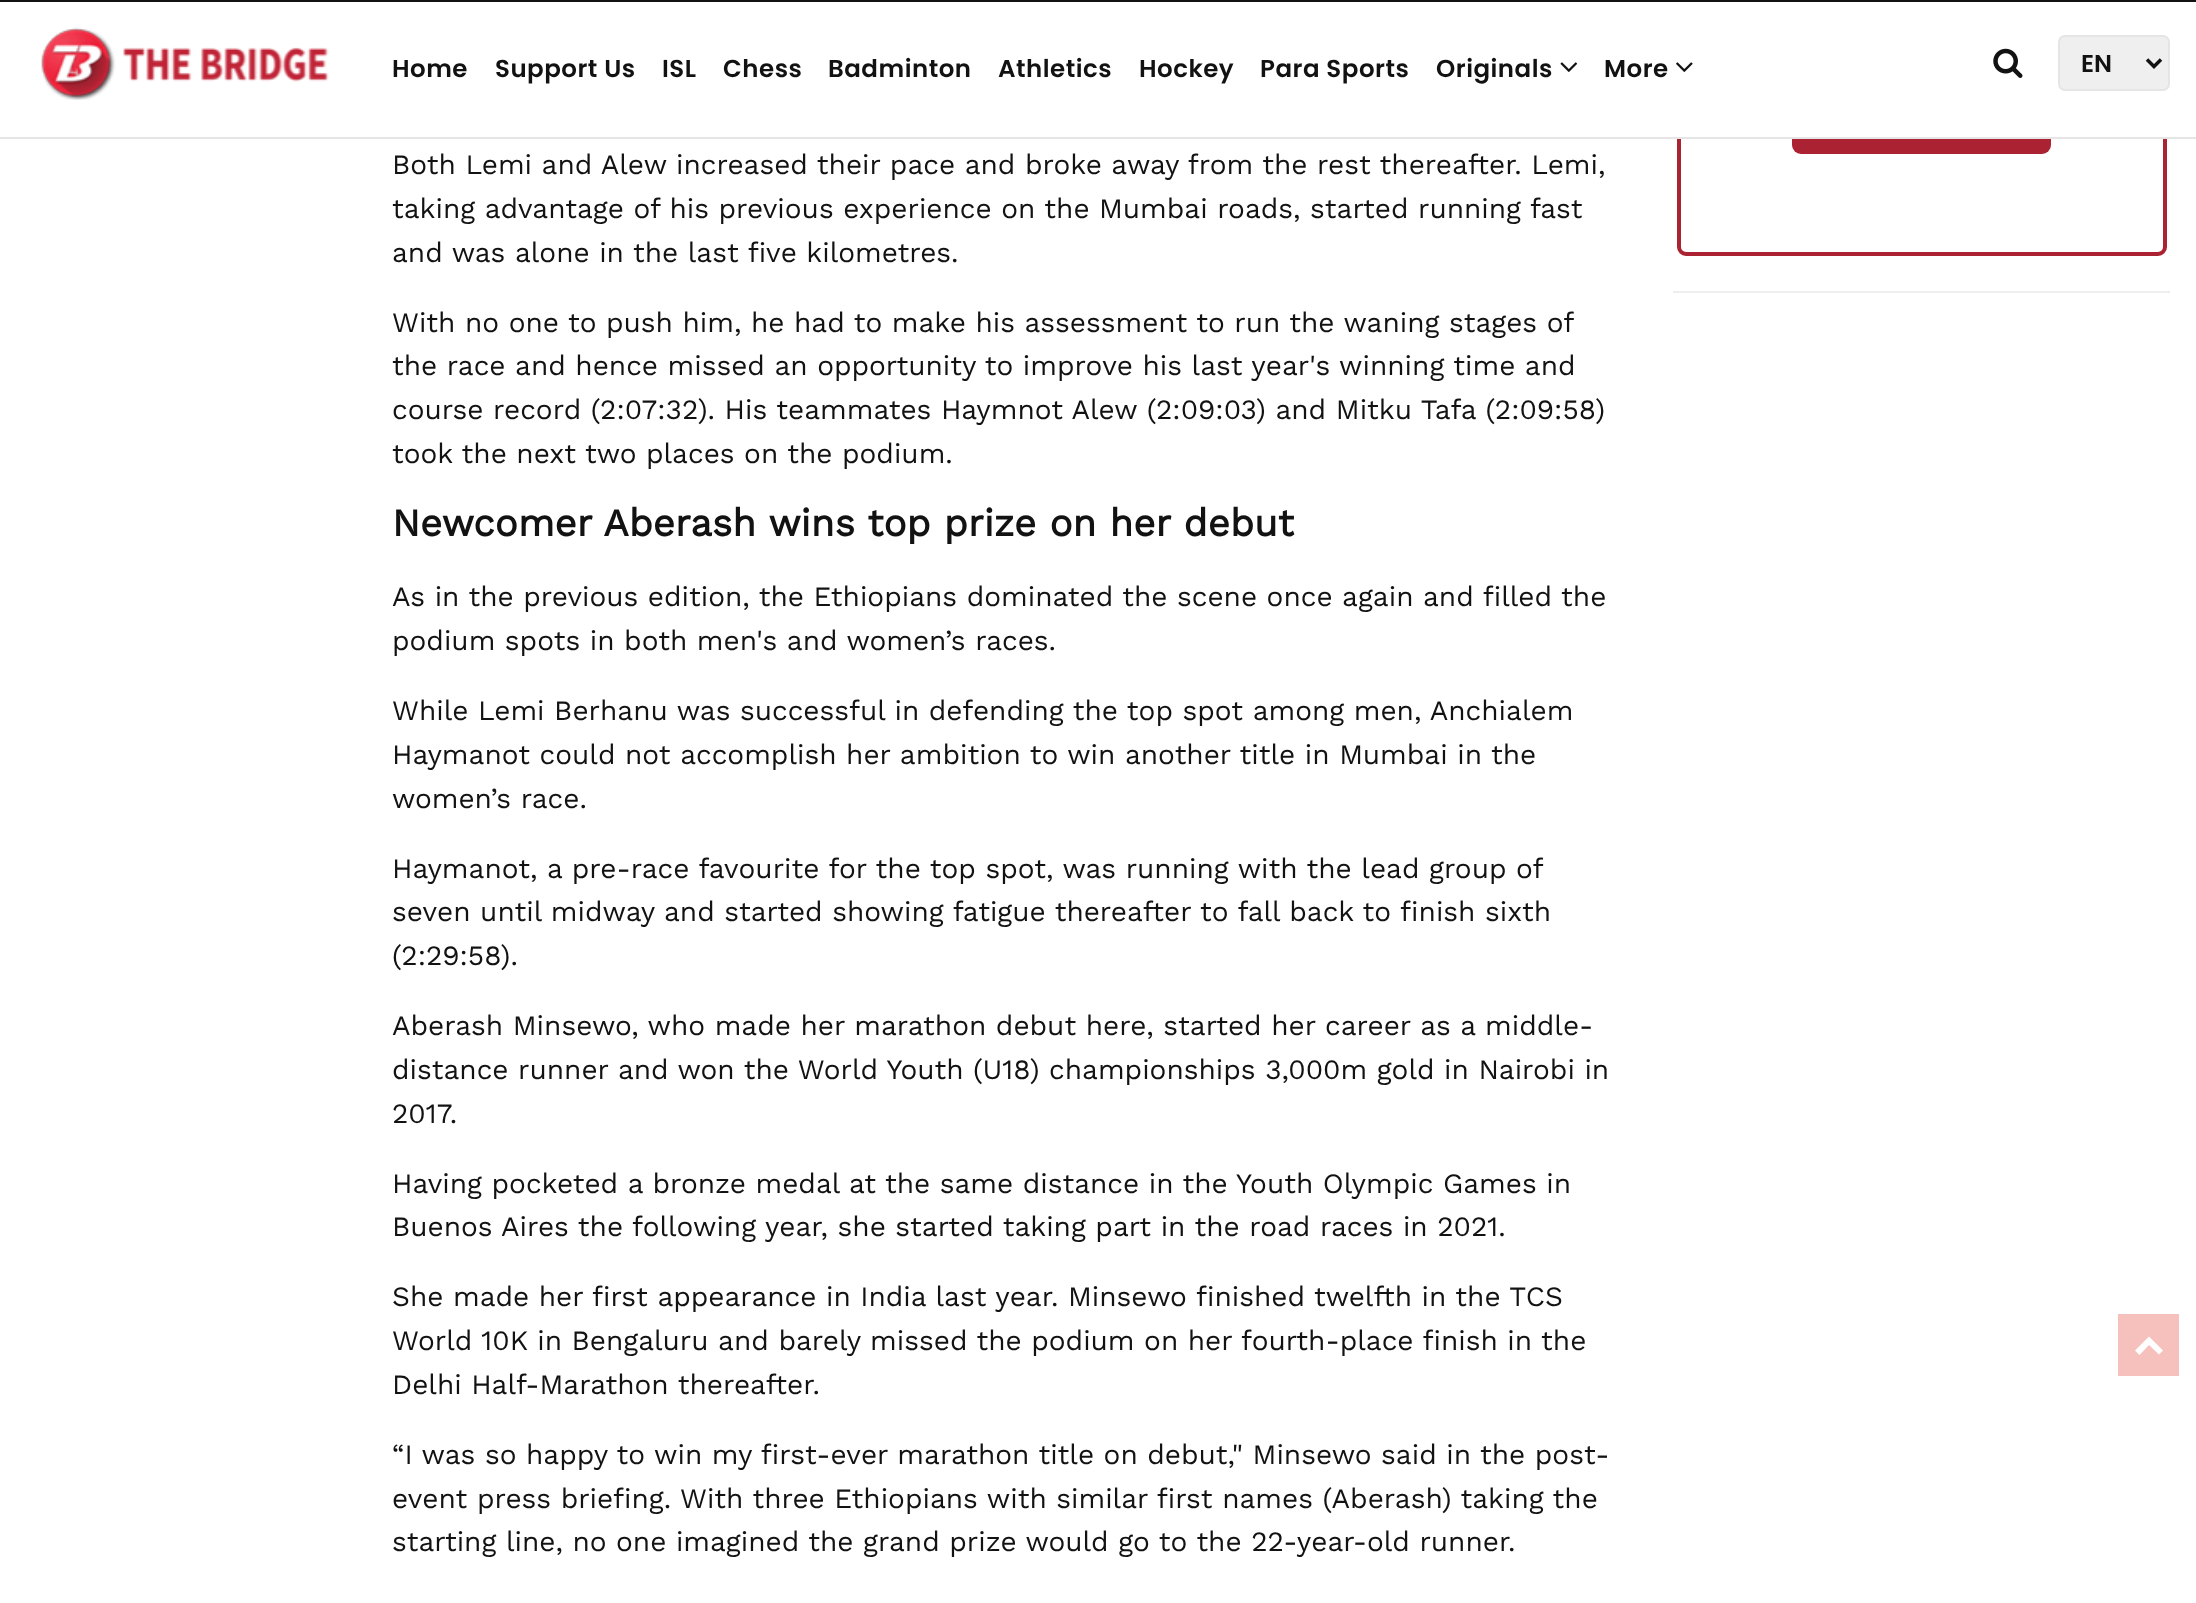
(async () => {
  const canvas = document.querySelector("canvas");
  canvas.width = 2196;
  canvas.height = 1603;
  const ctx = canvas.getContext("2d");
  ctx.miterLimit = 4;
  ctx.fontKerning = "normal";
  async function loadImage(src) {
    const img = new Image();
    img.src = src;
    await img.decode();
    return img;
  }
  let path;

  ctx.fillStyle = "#ffffff";
  ctx.fillRect(0, 0, 2196, 1603);
  ctx.beginPath();
  ctx.roundRect(1679, -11, 486, 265, 7);
  ctx.strokeStyle = "#ab2233";
  ctx.lineWidth = 4;
  ctx.stroke();
  ctx.fillStyle = "#121212";
  ctx.fillRect(0, 0, 2196, 2);
  ctx.fillStyle = "#ab2233";
  ctx.beginPath();
  ctx.roundRect(1792, 86, 259, 68, 9);
  ctx.fill();
  ctx.fillStyle = "#ffffff";
  ctx.fillRect(1677, 2, 490, 135);
  ctx.fillStyle = "#e5e5e5";
  ctx.fillRect(0, 137, 2196, 2);
  ctx.drawImage(await loadImage("img/1.png"), 41, 27, 288, 73);
  ctx.drawImage(await loadImage("img/2.png"), 1560, 62, 18, 10);
  ctx.drawImage(await loadImage("img/3.png"), 1676, 62, 17, 10);
  ctx.drawImage(await loadImage("img/4.png"), 1993, 48, 30, 30);
  ctx.fillStyle = "#efefef";
  ctx.beginPath();
  ctx.roundRect(2059, 36, 110, 54, 6);
  ctx.fill();
  ctx.strokeStyle = "#e5e5e5";
  ctx.lineWidth = 2;
  ctx.stroke();
  path = new Path2D("M2147 59.5L2154 66.5L2161 59.5");
  ctx.strokeStyle = "#121212";
  ctx.lineWidth = 3.5;
  ctx.stroke(path);
  ctx.fillStyle = "#eeeeee";
  ctx.fillRect(1673, 291, 497, 2);
  ctx.fillStyle = "#f6c1bc";
  ctx.fillRect(2118, 1314, 61, 62);
  ctx.fillStyle = "#ffffff";
  path = new Path2D("M2149 1336.5L2163 1350.5L2159 1354.5L2149 1345L2139.5 1355L2135 1350.5Z");
  ctx.fill(path);
  ctx.letterSpacing = "0.5px";
  ctx.font = "600 24.5px Poppins";
  ctx.fillStyle = "#121212";
  for (const [text, x, y] of [
    ["Home", 392, 77],
    ["Support Us", 495, 77],
    ["ISL", 662, 77],
    ["Chess", 723, 77],
    ["Badminton", 828, 77],
    ["Athletics", 998, 77],
    ["Hockey", 1139, 77],
    ["Para Sports", 1260, 77],
    ["Originals", 1436, 77],
    ["More", 1604, 77],
  ]) {
    ctx.fillText(text, x, y);
  }
  ctx.letterSpacing = "0px";
  ctx.fillText("EN", 2081, 72);
  ctx.font = "28px Work Sans";
  for (const [text, x, y] of [
    ["Both Lemi and Alew increased their pace and broke away from the rest thereafter. Lemi,", 392, 174],
    ["taking advantage of his previous experience on the Mumbai roads, started running fast", 392, 218],
    ["and was alone in the last five kilometres.", 392, 262],
    ["With no one to push him, he had to make his assessment to run the waning stages of", 392, 332],
    ["the race and hence missed an opportunity to improve his last year's winning time and", 392, 375],
    ["course record (2:07:32). His teammates Haymnot Alew (2:09:03) and Mitku Tafa (2:09:58)", 392, 419],
    ["took the next two places on the podium.", 392, 463],
  ]) {
    ctx.fillText(text, x, y);
  }
  ctx.font = "bold 38.5px Work Sans";
  ctx.fillText("Newcomer Aberash wins top prize on her debut", 392, 536);
  ctx.font = "28px Work Sans";
  for (const [text, x, y] of [
    ["As in the previous edition, the Ethiopians dominated the scene once again and filled the", 392, 606],
    ["podium spots in both men's and women’s races.", 392, 650],
    ["While Lemi Berhanu was successful in defending the top spot among men, Anchialem", 392, 720],
    ["Haymanot could not accomplish her ambition to win another title in Mumbai in the", 392, 764],
    ["women’s race.", 392, 808],
    ["Haymanot, a pre-race favourite for the top spot, was running with the lead group of", 392, 878],
    ["seven until midway and started showing fatigue thereafter to fall back to finish sixth", 392, 921],
    ["(2:29:58).", 392, 965],
    ["Aberash Minsewo, who made her marathon debut here, started her career as a middle-", 392, 1035],
    ["distance runner and won the World Youth (U18) championships 3,000m gold in Nairobi in", 392, 1079],
    ["2017.", 392, 1123],
    ["Having pocketed a bronze medal at the same distance in the Youth Olympic Games in", 392, 1193],
    ["Buenos Aires the following year, she started taking part in the road races in 2021.", 392, 1236],
    ["She made her first appearance in India last year. Minsewo finished twelfth in the TCS", 392, 1306],
    ["World 10K in Bengaluru and barely missed the podium on her fourth-place finish in the", 392, 1350],
    ["Delhi Half-Marathon thereafter.", 392, 1394],
    ["“I was so happy to win my first-ever marathon title on debut,\" Minsewo said in the post-", 392, 1464],
    ["event press briefing.", 392, 1508],
    ["With three Ethiopians with similar first names (Aberash) taking the", 680, 1508],
    ["starting line, no one imagined the grand prize would go to the 22-year-old runner.", 392, 1551],
  ]) {
    ctx.fillText(text, x, y);
  }
})();
